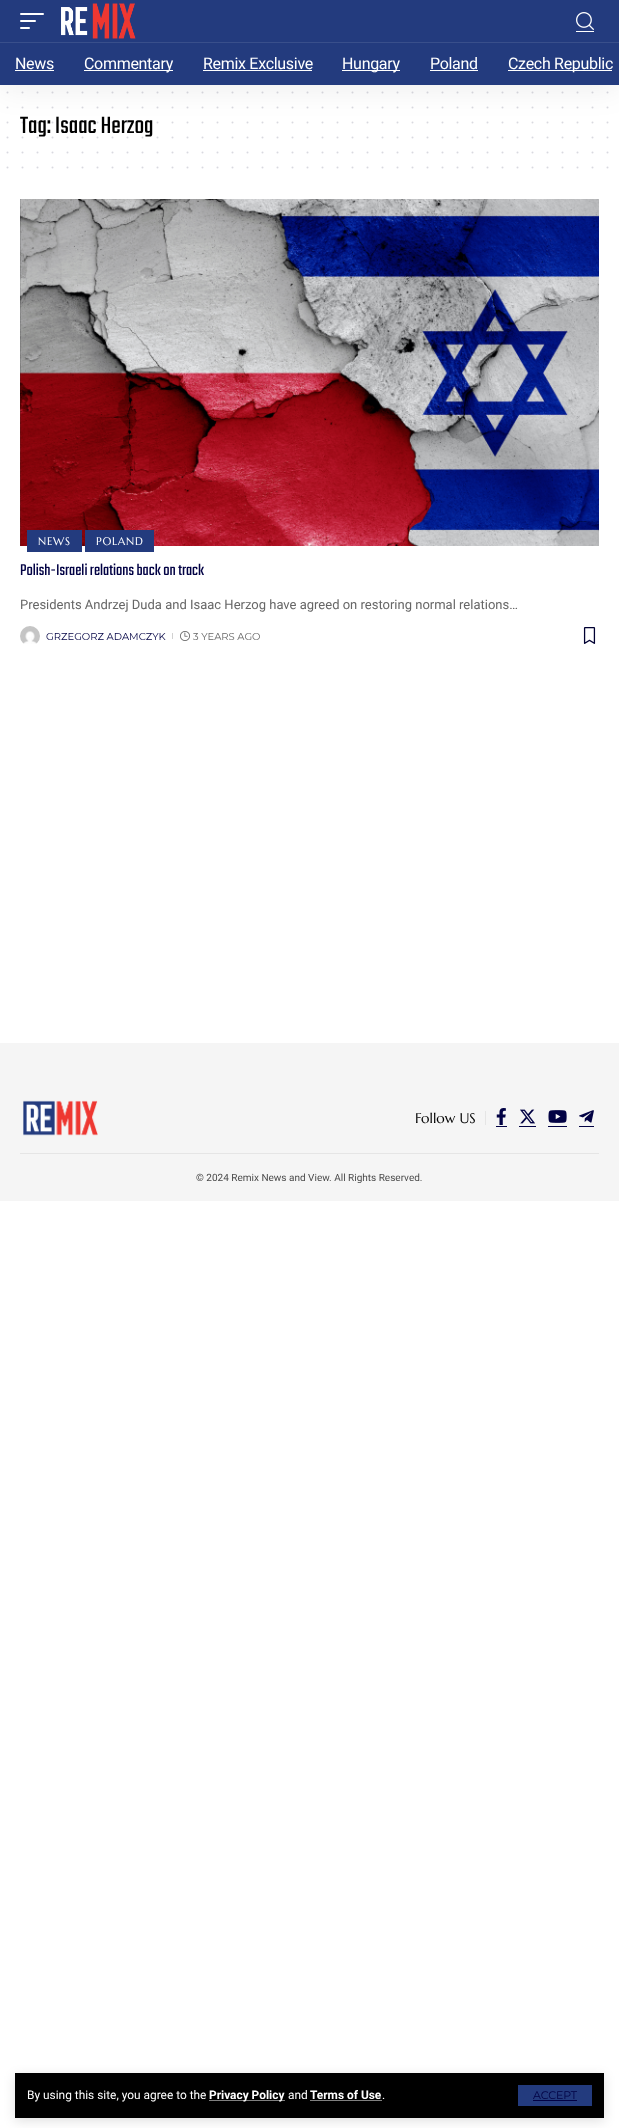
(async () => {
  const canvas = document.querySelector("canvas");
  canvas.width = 619;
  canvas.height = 2128;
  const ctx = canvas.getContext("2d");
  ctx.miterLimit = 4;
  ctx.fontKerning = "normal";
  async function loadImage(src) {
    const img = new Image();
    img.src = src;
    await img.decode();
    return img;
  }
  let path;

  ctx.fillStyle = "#ffffff";
  ctx.fillRect(0, 0, 619, 2128);
  ctx.fillStyle = "rgba(0, 0, 0, 0.12)";
  ctx.filter = "blur(6px)";
  ctx.beginPath();
  ctx.rect(15, 2076, 589, 45);
  ctx.fill();
  ctx.filter = "none";
  ctx.fillStyle = "#000000";
  ctx.fillRect(15, 2073, 589, 45);
  path = new Path2D("M209.5 2100.5H284.5");
  ctx.strokeStyle = "#ffffff";
  ctx.setLineDash([1, 1]);
  ctx.stroke(path);
  path = new Path2D("M310.5 2100.5H381.5");
  ctx.stroke(path);
  ctx.fillStyle = "#233b7e";
  ctx.fillRect(518, 2085, 74, 21);
  ctx.fillStyle = "#020244";
  ctx.fillRect(533, 2100, 44, 1);
  path = new Path2D("M7.5 92.5H607.7");
  ctx.strokeStyle = "#d9d9e0";
  ctx.lineWidth = 2;
  ctx.lineCap = "round";
  ctx.setLineDash([0, 15]);
  ctx.stroke(path);
  path = new Path2D("M7.5 107.5H607.7");
  ctx.stroke(path);
  path = new Path2D("M7.5 152.5H607.7");
  ctx.stroke(path);
  path = new Path2D("M7.5 167.5H607.7");
  ctx.stroke(path);
  ctx.drawImage(await loadImage("img/3.png"), 20, 199, 579, 347);
  ctx.fillStyle = "#233b7e";
  ctx.fillRect(27, 530, 55, 22);
  ctx.fillRect(85, 530, 69, 22);
  ctx.drawImage(await loadImage("img/4.png"), 20, 626, 20, 18);
  ctx.fillStyle = "#d1d1d1";
  ctx.fillRect(172, 633, 1, 6);
  ctx.drawImage(await loadImage("img/5.png"), 180, 631, 10, 10);
  ctx.drawImage(await loadImage("img/6.png"), 583, 627, 13, 17);
  ctx.fillStyle = "#f5f5f5";
  ctx.fillRect(0, 1043, 619, 158);
  ctx.drawImage(await loadImage("img/7.png"), 23, 1100, 75, 36);
  ctx.fillStyle = "#e5e5e5";
  ctx.fillRect(485, 1111, 1, 14);
  ctx.drawImage(await loadImage("img/8.png"), 496, 1108, 10, 17);
  ctx.fillStyle = "#020244";
  ctx.fillRect(496, 1126, 11, 1);
  ctx.drawImage(await loadImage("img/9.png"), 520, 1109, 15, 15);
  ctx.fillRect(519, 1126, 17, 1);
  ctx.drawImage(await loadImage("img/10.png"), 548, 1110, 19, 13);
  ctx.fillRect(548, 1126, 19, 1);
  ctx.drawImage(await loadImage("img/11.png"), 579, 1110, 15, 13);
  ctx.fillRect(579, 1126, 15, 1);
  ctx.fillStyle = "#e5e5e5";
  ctx.fillRect(20, 1153, 579, 1);
  ctx.font = "11.9px Roboto";
  ctx.fillStyle = "#ffffff";
  ctx.fillText("By using this site, you agree to the", 27, 2099);
  ctx.font = "bold 11.9px Roboto";
  ctx.fillText("Privacy Policy", 209, 2099);
  ctx.font = "11.9px Roboto";
  ctx.fillText("and", 288, 2099);
  ctx.font = "bold 11.9px Roboto";
  ctx.fillText("Terms of Use", 310, 2099);
  ctx.font = "11.9px Roboto";
  ctx.fillText(".", 382, 2099);
  ctx.font = "11px Montserrat";
  ctx.fillStyle = "#020244";
  ctx.fillText("ACCEPT", 533, 2099);
  ctx.font = "300 26px Teko";
  ctx.fillStyle = "#000000";
  ctx.fillText("Tag: Isaac Herzog", 20, 133);
  path = new Path2D("M7.5 122.5H607.7");
  ctx.strokeStyle = "rgba(0, 0, 50, 0.15)";
  ctx.stroke(path);
  ctx.fillStyle = "rgba(0, 0, 0, 0.07)";
  ctx.filter = "blur(15px)";
  ctx.beginPath();
  ctx.rect(0, 4, 619, 85);
  ctx.fill();
  ctx.filter = "none";
  ctx.fillStyle = "#233b7e";
  ctx.fillRect(0, 0, 619, 85);
  ctx.fillStyle = "#ffffff";
  ctx.fillRect(508, 70, 104, 1);
  ctx.letterSpacing = "-0.3px";
  ctx.font = "16px Roboto";
  ctx.fillText("Czech Republic", 508, 69);
  ctx.fillText("Poland", 430, 69);
  ctx.fillRect(430, 70, 48, 1);
  ctx.fillRect(342, 70, 58, 1);
  ctx.fillText("Hungary", 342, 69);
  ctx.fillText("Remix Exclusive", 203, 69);
  ctx.fillRect(203, 70, 109, 1);
  ctx.fillRect(84, 70, 89, 1);
  ctx.fillText("Commentary", 84, 69);
  ctx.fillText("News", 15, 69);
  ctx.fillRect(15, 70, 39, 1);
  ctx.fillStyle = "#394f8b";
  ctx.fillRect(0, 42, 619, 1);
  ctx.drawImage(await loadImage("img/2.png"), 576, 12, 18, 18);
  ctx.fillStyle = "#ffffff";
  ctx.fillRect(576, 31, 18, 1);
  ctx.beginPath();
  ctx.roundRect(20, 27, 10, 2, 1);
  ctx.fill();
  ctx.beginPath();
  ctx.roundRect(20, 20, 16, 2, 1);
  ctx.fill();
  ctx.beginPath();
  ctx.roundRect(20, 13, 24, 2, 1);
  ctx.fill();
  ctx.drawImage(await loadImage("img/1.png"), 61, 3, 75, 36);
  path = new Path2D("M7.5 137.5H607.7");
  ctx.strokeStyle = "#d9d9e0";
  ctx.stroke(path);
  ctx.letterSpacing = "0.75px";
  ctx.font = "11px Marcellus";
  ctx.fillText("NEWS", 38, 545);
  ctx.fillText("POLAND", 96, 545);
  ctx.letterSpacing = "0px";
  ctx.font = "300 17px Teko";
  ctx.fillStyle = "#020244";
  ctx.fillText("Polish-Israeli relations back on track", 20, 575);
  ctx.font = "13px Roboto";
  ctx.fillStyle = "#666666";
  ctx.fillText("Presidents Andrzej Duda and Isaac Herzog have agreed on restoring normal relations…", 20, 609);
  ctx.font = "10px Montserrat";
  ctx.fillStyle = "#020244";
  ctx.fillText("GRZEGORZ ADAMCZYK", 46, 640);
  ctx.fillStyle = "#666666";
  ctx.fillText("3 YEARS AGO", 193, 640);
  ctx.font = "14px Marcellus";
  ctx.fillStyle = "#000000";
  ctx.fillText("Follow US", 415, 1123);
  ctx.font = "10px Roboto";
  ctx.fillStyle = "#4a4a4a";
  ctx.fillText("© 2024 Remix News and View. All Rights Reserved.", 196, 1181);
})();
